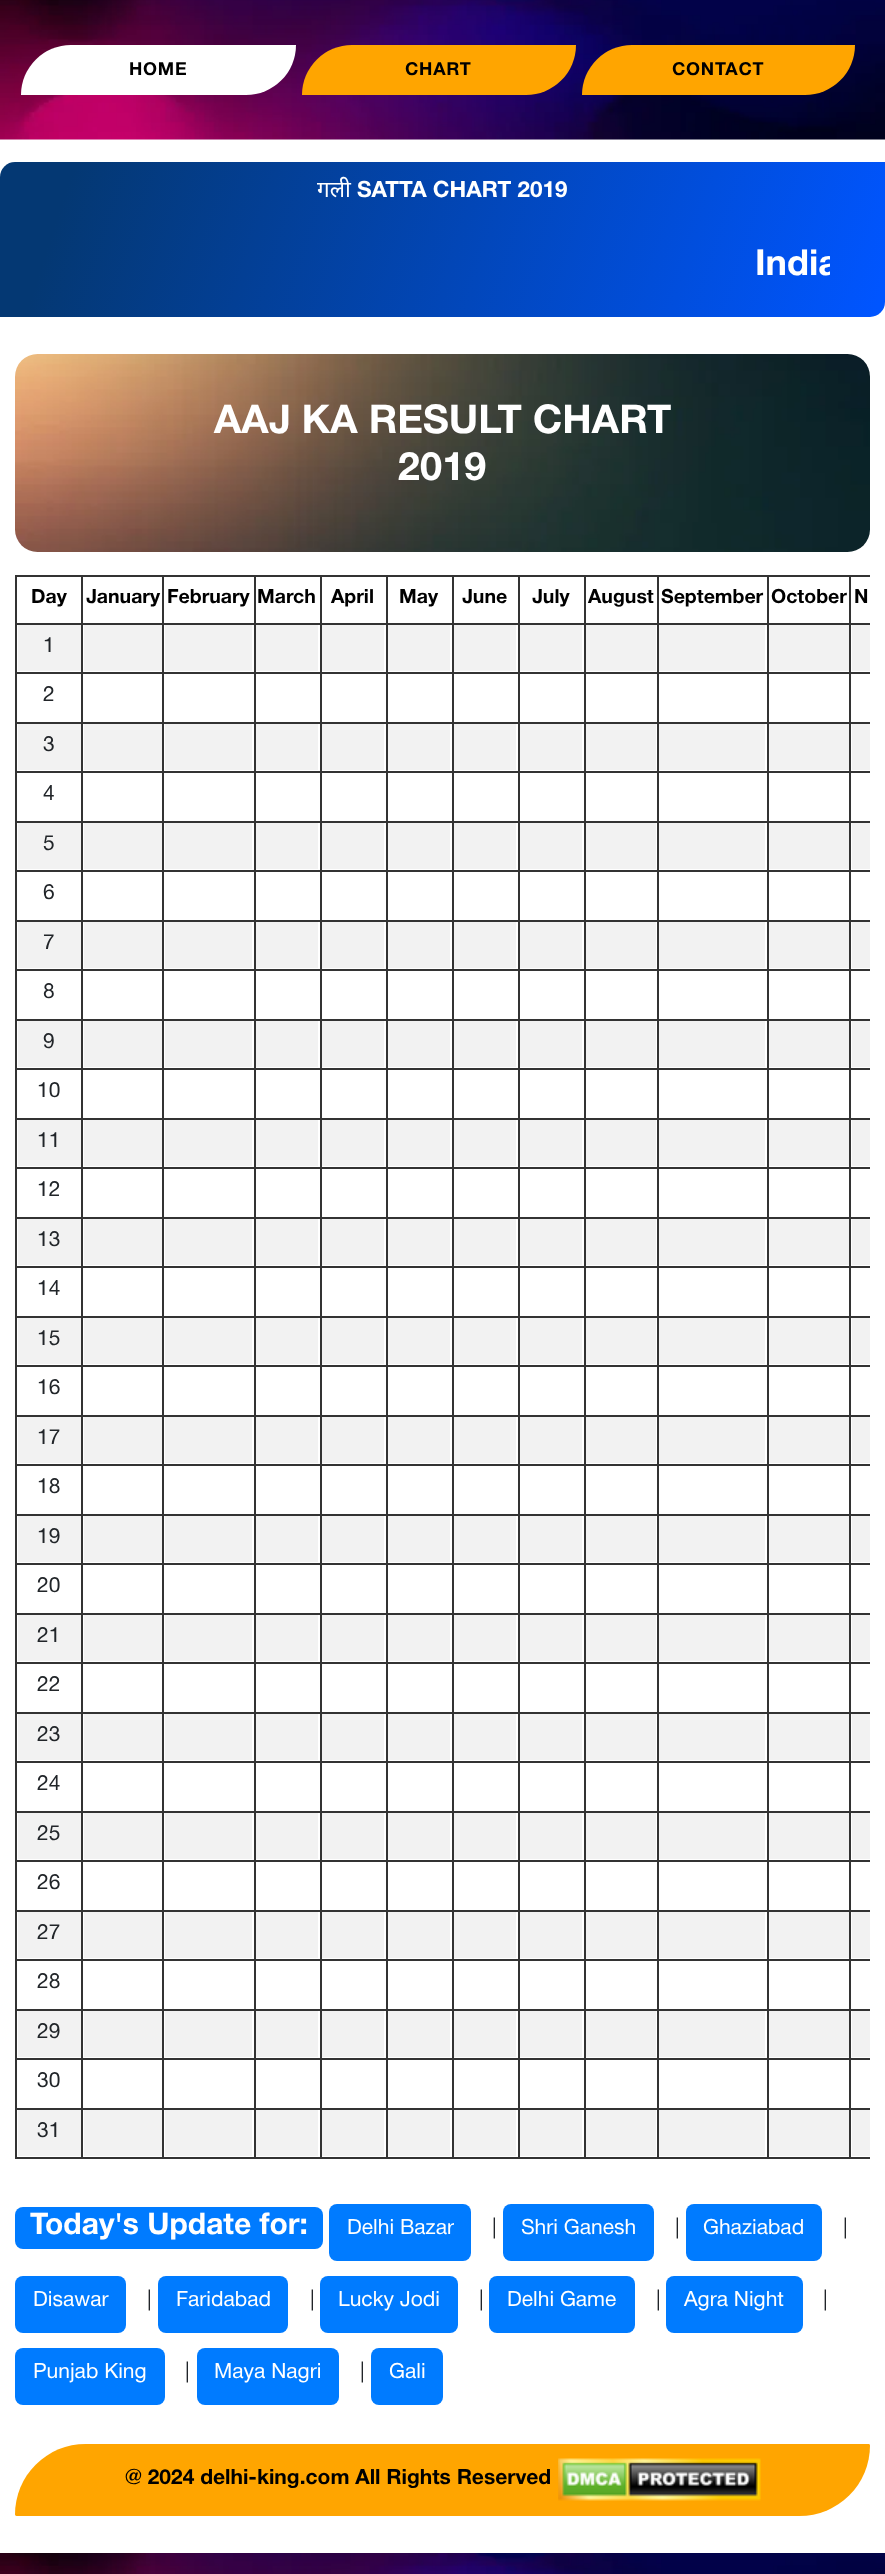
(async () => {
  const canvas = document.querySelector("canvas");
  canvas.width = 885;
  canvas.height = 2574;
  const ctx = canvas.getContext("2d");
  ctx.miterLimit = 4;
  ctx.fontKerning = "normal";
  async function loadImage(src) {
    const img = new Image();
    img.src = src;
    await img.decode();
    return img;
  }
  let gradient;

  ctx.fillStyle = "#ffffff";
  ctx.fillRect(0, 0, 885, 2574);
  ctx.drawImage(await loadImage("img/1.png"), 0, 0, 885, 140);
  ctx.beginPath();
  ctx.roundRect(21, 45, 275, 50, [50, 0, 50, 0]);
  ctx.fill();
  ctx.fillStyle = "#ffa500";
  ctx.beginPath();
  ctx.roundRect(302, 45, 274, 50, [50, 0, 50, 0]);
  ctx.fill();
  ctx.beginPath();
  ctx.roundRect(582, 45, 273, 50, [50, 0, 50, 0]);
  ctx.fill();
  gradient = ctx.createLinearGradient(865, 377, 20, 102);
  gradient.addColorStop(0.01, "#0055ff");
  gradient.addColorStop(0.92, "#043873");
  ctx.fillStyle = gradient;
  ctx.beginPath();
  ctx.roundRect(0, 162, 885, 155, [15, 0, 15, 0]);
  ctx.fill();
  ctx.drawImage(await loadImage("img/2.png"), 15, 354, 855, 198);
  for (const [x, y, w, h, color] of [
    [849, 575, 21, 2, "#333333"],
    [849, 623, 21, 2, "#333333"],
    [849, 672, 21, 2, "#333333"],
    [849, 722, 21, 2, "#333333"],
    [849, 771, 21, 2, "#333333"],
    [849, 821, 21, 2, "#333333"],
    [849, 870, 21, 2, "#333333"],
    [849, 920, 21, 2, "#333333"],
    [849, 969, 21, 2, "#333333"],
    [849, 1019, 21, 2, "#333333"],
    [849, 1068, 21, 2, "#333333"],
    [849, 1118, 21, 2, "#333333"],
    [849, 1167, 21, 2, "#333333"],
    [849, 1217, 21, 2, "#333333"],
    [849, 1266, 21, 2, "#333333"],
    [849, 1316, 21, 2, "#333333"],
    [849, 1365, 21, 2, "#333333"],
    [849, 1415, 21, 2, "#333333"],
    [849, 1464, 21, 2, "#333333"],
    [849, 1514, 21, 2, "#333333"],
    [849, 1563, 21, 2, "#333333"],
    [849, 1613, 21, 2, "#333333"],
    [849, 1662, 21, 2, "#333333"],
    [849, 1712, 21, 2, "#333333"],
    [849, 1761, 21, 2, "#333333"],
    [849, 1811, 21, 2, "#333333"],
    [849, 1860, 21, 2, "#333333"],
    [849, 1910, 21, 2, "#333333"],
    [849, 1959, 21, 2, "#333333"],
    [849, 2009, 21, 2, "#333333"],
    [849, 2058, 21, 2, "#333333"],
    [849, 2108, 21, 2, "#333333"],
    [849, 2157, 21, 2, "#333333"],
    [849, 2108, 2, 51, "#333333"],
    [767, 2108, 84, 2, "#333333"],
    [849, 2058, 2, 51, "#333333"],
    [767, 2058, 84, 2, "#333333"],
    [849, 2009, 2, 51, "#333333"],
    [767, 2009, 84, 2, "#333333"],
    [849, 1959, 2, 51, "#333333"],
    [767, 1959, 84, 2, "#333333"],
    [849, 1910, 2, 51, "#333333"],
    [767, 1910, 84, 2, "#333333"],
    [849, 1860, 2, 51, "#333333"],
    [767, 1860, 84, 2, "#333333"],
    [849, 1811, 2, 51, "#333333"],
    [767, 1811, 84, 2, "#333333"],
    [849, 1761, 2, 51, "#333333"],
    [767, 1761, 84, 2, "#333333"],
    [849, 1712, 2, 51, "#333333"],
    [767, 1712, 84, 2, "#333333"],
    [849, 1662, 2, 51, "#333333"],
    [767, 1662, 84, 2, "#333333"],
    [849, 1613, 2, 51, "#333333"],
    [767, 1613, 84, 2, "#333333"],
    [849, 1563, 2, 51, "#333333"],
    [767, 1563, 84, 2, "#333333"],
    [849, 1514, 2, 51, "#333333"],
    [767, 1514, 84, 2, "#333333"],
    [849, 1464, 2, 51, "#333333"],
    [767, 1464, 84, 2, "#333333"],
    [849, 1415, 2, 51, "#333333"],
    [767, 1415, 84, 2, "#333333"],
    [849, 1365, 2, 51, "#333333"],
    [767, 1365, 84, 2, "#333333"],
    [849, 1316, 2, 51, "#333333"],
    [767, 1316, 84, 2, "#333333"],
    [849, 1266, 2, 51, "#333333"],
    [767, 1266, 84, 2, "#333333"],
    [849, 1217, 2, 51, "#333333"],
    [767, 1217, 84, 2, "#333333"],
    [849, 1167, 2, 51, "#333333"],
    [767, 1167, 84, 2, "#333333"],
    [849, 1118, 2, 51, "#333333"],
    [767, 1118, 84, 2, "#333333"],
    [849, 1068, 2, 51, "#333333"],
    [767, 1068, 84, 2, "#333333"],
    [849, 1019, 2, 51, "#333333"],
    [767, 1019, 84, 2, "#333333"],
    [849, 969, 2, 51, "#333333"],
    [767, 969, 84, 2, "#333333"],
    [849, 920, 2, 51, "#333333"],
    [767, 920, 84, 2, "#333333"],
    [849, 870, 2, 51, "#333333"],
    [767, 870, 84, 2, "#333333"],
    [849, 821, 2, 51, "#333333"],
    [767, 821, 84, 2, "#333333"],
    [849, 771, 2, 51, "#333333"],
    [767, 771, 84, 2, "#333333"],
    [849, 722, 2, 51, "#333333"],
    [767, 722, 84, 2, "#333333"],
    [849, 672, 2, 51, "#333333"],
    [767, 672, 84, 2, "#333333"],
    [849, 623, 2, 51, "#333333"],
    [767, 623, 84, 2, "#333333"],
    [849, 575, 2, 49, "#333333"],
    [767, 575, 84, 2, "#333333"],
    [767, 2157, 84, 2, "#333333"],
    [767, 2108, 2, 51, "#333333"],
    [657, 2108, 111, 2, "#333333"],
    [767, 2058, 2, 51, "#333333"],
    [657, 2058, 111, 2, "#333333"],
    [767, 2009, 2, 51, "#333333"],
    [657, 2009, 111, 2, "#333333"],
    [767, 1959, 2, 51, "#333333"],
    [657, 1959, 111, 2, "#333333"],
    [767, 1910, 2, 51, "#333333"],
    [657, 1910, 111, 2, "#333333"],
    [767, 1860, 2, 51, "#333333"],
    [657, 1860, 111, 2, "#333333"],
    [767, 1811, 2, 51, "#333333"],
    [657, 1811, 111, 2, "#333333"],
    [767, 1761, 2, 51, "#333333"],
    [657, 1761, 111, 2, "#333333"],
    [767, 1712, 2, 51, "#333333"],
    [657, 1712, 111, 2, "#333333"],
    [767, 1662, 2, 51, "#333333"],
    [657, 1662, 111, 2, "#333333"],
    [767, 1613, 2, 51, "#333333"],
    [657, 1613, 111, 2, "#333333"],
    [767, 1563, 2, 51, "#333333"],
    [657, 1563, 111, 2, "#333333"],
    [767, 1514, 2, 51, "#333333"],
    [657, 1514, 111, 2, "#333333"],
    [767, 1464, 2, 51, "#333333"],
    [657, 1464, 111, 2, "#333333"],
    [767, 1415, 2, 51, "#333333"],
    [657, 1415, 111, 2, "#333333"],
    [767, 1365, 2, 51, "#333333"],
    [657, 1365, 111, 2, "#333333"],
    [767, 1316, 2, 51, "#333333"],
    [657, 1316, 111, 2, "#333333"],
    [767, 1266, 2, 51, "#333333"],
    [657, 1266, 111, 2, "#333333"],
    [767, 1217, 2, 51, "#333333"],
    [657, 1217, 111, 2, "#333333"],
    [767, 1167, 2, 51, "#333333"],
    [657, 1167, 111, 2, "#333333"],
    [767, 1118, 2, 51, "#333333"],
    [657, 1118, 111, 2, "#333333"],
    [767, 1068, 2, 51, "#333333"],
    [657, 1068, 111, 2, "#333333"],
    [767, 1019, 2, 51, "#333333"],
    [657, 1019, 111, 2, "#333333"],
    [767, 969, 2, 51, "#333333"],
    [657, 969, 111, 2, "#333333"],
    [767, 920, 2, 51, "#333333"],
    [657, 920, 111, 2, "#333333"],
    [767, 870, 2, 51, "#333333"],
    [657, 870, 111, 2, "#333333"],
    [767, 821, 2, 51, "#333333"],
    [657, 821, 111, 2, "#333333"],
    [767, 771, 2, 51, "#333333"],
    [657, 771, 111, 2, "#333333"],
    [767, 722, 2, 51, "#333333"],
    [657, 722, 111, 2, "#333333"],
    [767, 672, 2, 51, "#333333"],
    [657, 672, 111, 2, "#333333"],
    [767, 623, 2, 51, "#333333"],
    [657, 623, 111, 2, "#333333"],
    [767, 575, 2, 49, "#333333"],
    [657, 575, 111, 2, "#333333"],
    [657, 2157, 111, 2, "#333333"],
    [657, 2108, 2, 51, "#333333"],
    [584, 2108, 75, 2, "#333333"],
    [657, 2058, 2, 51, "#333333"],
    [584, 2058, 75, 2, "#333333"],
    [657, 2009, 2, 51, "#333333"],
    [584, 2009, 75, 2, "#333333"],
    [657, 1959, 2, 51, "#333333"],
    [584, 1959, 75, 2, "#333333"],
    [657, 1910, 2, 51, "#333333"],
    [584, 1910, 75, 2, "#333333"],
    [657, 1860, 2, 51, "#333333"],
    [584, 1860, 75, 2, "#333333"],
    [657, 1811, 2, 51, "#333333"],
    [584, 1811, 75, 2, "#333333"],
    [657, 1761, 2, 51, "#333333"],
    [584, 1761, 75, 2, "#333333"],
    [657, 1712, 2, 51, "#333333"],
    [584, 1712, 75, 2, "#333333"],
    [657, 1662, 2, 51, "#333333"],
    [584, 1662, 75, 2, "#333333"],
    [657, 1613, 2, 51, "#333333"],
    [584, 1613, 75, 2, "#333333"],
    [657, 1563, 2, 51, "#333333"],
    [584, 1563, 75, 2, "#333333"],
    [657, 1514, 2, 51, "#333333"],
    [584, 1514, 75, 2, "#333333"],
    [657, 1464, 2, 51, "#333333"],
    [584, 1464, 75, 2, "#333333"],
    [657, 1415, 2, 51, "#333333"],
    [584, 1415, 75, 2, "#333333"],
    [657, 1365, 2, 51, "#333333"],
    [584, 1365, 75, 2, "#333333"],
    [657, 1316, 2, 51, "#333333"],
    [584, 1316, 75, 2, "#333333"],
    [657, 1266, 2, 51, "#333333"],
    [584, 1266, 75, 2, "#333333"],
    [657, 1217, 2, 51, "#333333"],
    [584, 1217, 75, 2, "#333333"],
    [657, 1167, 2, 51, "#333333"],
    [584, 1167, 75, 2, "#333333"],
    [657, 1118, 2, 51, "#333333"],
    [584, 1118, 75, 2, "#333333"],
    [657, 1068, 2, 51, "#333333"],
    [584, 1068, 75, 2, "#333333"],
    [657, 1019, 2, 51, "#333333"],
    [584, 1019, 75, 2, "#333333"],
    [657, 969, 2, 51, "#333333"],
    [584, 969, 75, 2, "#333333"],
    [657, 920, 2, 51, "#333333"],
    [584, 920, 75, 2, "#333333"],
    [657, 870, 2, 51, "#333333"],
    [584, 870, 75, 2, "#333333"],
    [657, 821, 2, 51, "#333333"],
    [584, 821, 75, 2, "#333333"],
    [657, 771, 2, 51, "#333333"],
    [584, 771, 75, 2, "#333333"],
    [657, 722, 2, 51, "#333333"],
    [584, 722, 75, 2, "#333333"],
    [657, 672, 2, 51, "#333333"],
    [584, 672, 75, 2, "#333333"],
    [657, 623, 2, 51, "#333333"],
    [584, 623, 75, 2, "#333333"],
    [657, 575, 2, 49, "#333333"],
    [584, 575, 75, 2, "#333333"],
    [584, 2157, 75, 2, "#333333"],
    [584, 2108, 2, 51, "#333333"],
    [518, 2108, 67, 2, "#333333"],
    [584, 2058, 2, 51, "#333333"],
    [518, 2058, 67, 2, "#333333"],
    [584, 2009, 2, 51, "#333333"],
    [518, 2009, 67, 2, "#333333"],
    [584, 1959, 2, 51, "#333333"],
    [518, 1959, 67, 2, "#333333"],
    [584, 1910, 2, 51, "#333333"],
    [518, 1910, 67, 2, "#333333"],
    [584, 1860, 2, 51, "#333333"],
    [518, 1860, 67, 2, "#333333"],
    [584, 1811, 2, 51, "#333333"],
    [518, 1811, 67, 2, "#333333"],
    [584, 1761, 2, 51, "#333333"],
    [518, 1761, 67, 2, "#333333"],
    [584, 1712, 2, 51, "#333333"],
    [518, 1712, 67, 2, "#333333"],
    [584, 1662, 2, 51, "#333333"],
    [518, 1662, 67, 2, "#333333"],
    [584, 1613, 2, 51, "#333333"],
    [518, 1613, 67, 2, "#333333"],
    [584, 1563, 2, 51, "#333333"],
    [518, 1563, 67, 2, "#333333"],
    [584, 1514, 2, 51, "#333333"],
    [518, 1514, 67, 2, "#333333"],
    [584, 1464, 2, 51, "#333333"],
    [518, 1464, 67, 2, "#333333"],
    [584, 1415, 2, 51, "#333333"],
    [518, 1415, 67, 2, "#333333"],
    [584, 1365, 2, 51, "#333333"],
    [518, 1365, 67, 2, "#333333"],
    [584, 1316, 2, 51, "#333333"],
    [518, 1316, 67, 2, "#333333"],
    [584, 1266, 2, 51, "#333333"],
    [518, 1266, 67, 2, "#333333"],
    [584, 1217, 2, 51, "#333333"],
    [518, 1217, 67, 2, "#333333"],
    [584, 1167, 2, 51, "#333333"],
    [518, 1167, 67, 2, "#333333"],
    [584, 1118, 2, 51, "#333333"],
    [518, 1118, 67, 2, "#333333"],
    [584, 1068, 2, 51, "#333333"],
    [518, 1068, 67, 2, "#333333"],
    [584, 1019, 2, 51, "#333333"],
    [518, 1019, 67, 2, "#333333"],
    [584, 969, 2, 51, "#333333"],
    [518, 969, 67, 2, "#333333"],
    [584, 920, 2, 51, "#333333"],
    [518, 920, 67, 2, "#333333"],
    [584, 870, 2, 51, "#333333"],
    [518, 870, 67, 2, "#333333"],
    [584, 821, 2, 51, "#333333"],
    [518, 821, 67, 2, "#333333"],
    [584, 771, 2, 51, "#333333"],
    [518, 771, 67, 2, "#333333"],
    [584, 722, 2, 51, "#333333"],
    [518, 722, 67, 2, "#333333"],
    [584, 672, 2, 51, "#333333"],
    [518, 672, 67, 2, "#333333"],
    [584, 623, 2, 51, "#333333"],
    [518, 623, 67, 2, "#333333"],
    [584, 575, 2, 49, "#333333"],
    [518, 575, 67, 2, "#333333"],
    [518, 2157, 67, 2, "#333333"],
    [518, 2108, 2, 51, "#333333"],
    [452, 2108, 67, 2, "#333333"],
    [518, 2058, 2, 51, "#333333"],
    [452, 2058, 67, 2, "#333333"],
    [518, 2009, 2, 51, "#333333"],
    [452, 2009, 67, 2, "#333333"],
    [518, 1959, 2, 51, "#333333"],
    [452, 1959, 67, 2, "#333333"],
    [518, 1910, 2, 51, "#333333"],
    [452, 1910, 67, 2, "#333333"],
    [518, 1860, 2, 51, "#333333"],
    [452, 1860, 67, 2, "#333333"],
    [518, 1811, 2, 51, "#333333"],
    [452, 1811, 67, 2, "#333333"],
    [518, 1761, 2, 51, "#333333"],
    [452, 1761, 67, 2, "#333333"],
    [518, 1712, 2, 51, "#333333"],
    [452, 1712, 67, 2, "#333333"],
    [518, 1662, 2, 51, "#333333"],
    [452, 1662, 67, 2, "#333333"],
    [518, 1613, 2, 51, "#333333"],
    [452, 1613, 67, 2, "#333333"],
    [518, 1563, 2, 51, "#333333"],
    [452, 1563, 67, 2, "#333333"],
    [518, 1514, 2, 51, "#333333"],
    [452, 1514, 67, 2, "#333333"],
    [518, 1464, 2, 51, "#333333"],
    [452, 1464, 67, 2, "#333333"],
    [518, 1415, 2, 51, "#333333"],
    [452, 1415, 67, 2, "#333333"],
    [518, 1365, 2, 51, "#333333"],
    [452, 1365, 67, 2, "#333333"],
    [518, 1316, 2, 51, "#333333"],
    [452, 1316, 67, 2, "#333333"],
    [518, 1266, 2, 51, "#333333"],
    [452, 1266, 67, 2, "#333333"],
    [518, 1217, 2, 51, "#333333"],
    [452, 1217, 67, 2, "#333333"],
    [518, 1167, 2, 51, "#333333"],
    [452, 1167, 67, 2, "#333333"],
    [518, 1118, 2, 51, "#333333"],
    [452, 1118, 67, 2, "#333333"],
    [518, 1068, 2, 51, "#333333"],
    [452, 1068, 67, 2, "#333333"],
    [518, 1019, 2, 51, "#333333"],
    [452, 1019, 67, 2, "#333333"],
    [518, 969, 2, 51, "#333333"],
    [452, 969, 67, 2, "#333333"],
    [518, 920, 2, 51, "#333333"],
    [452, 920, 67, 2, "#333333"],
    [518, 870, 2, 51, "#333333"],
    [452, 870, 67, 2, "#333333"],
    [518, 821, 2, 51, "#333333"],
    [452, 821, 67, 2, "#333333"],
    [518, 771, 2, 51, "#333333"],
    [452, 771, 67, 2, "#333333"],
    [518, 722, 2, 51, "#333333"],
    [452, 722, 67, 2, "#333333"],
    [518, 672, 2, 51, "#333333"],
    [452, 672, 67, 2, "#333333"],
    [518, 623, 2, 51, "#333333"],
    [452, 623, 67, 2, "#333333"],
    [518, 575, 2, 49, "#333333"],
    [452, 575, 67, 2, "#333333"],
    [452, 2157, 67, 2, "#333333"],
    [452, 2108, 2, 51, "#333333"],
    [386, 2108, 67, 2, "#333333"],
    [452, 2058, 2, 51, "#333333"],
    [386, 2058, 67, 2, "#333333"],
    [452, 2009, 2, 51, "#333333"],
    [386, 2009, 67, 2, "#333333"],
    [452, 1959, 2, 51, "#333333"],
    [386, 1959, 67, 2, "#333333"],
    [452, 1910, 2, 51, "#333333"],
    [386, 1910, 67, 2, "#333333"],
    [452, 1860, 2, 51, "#333333"],
    [386, 1860, 67, 2, "#333333"],
    [452, 1811, 2, 51, "#333333"],
    [386, 1811, 67, 2, "#333333"],
    [452, 1761, 2, 51, "#333333"],
    [386, 1761, 67, 2, "#333333"],
    [452, 1712, 2, 51, "#333333"],
    [386, 1712, 67, 2, "#333333"],
    [452, 1662, 2, 51, "#333333"],
    [386, 1662, 67, 2, "#333333"],
    [452, 1613, 2, 51, "#333333"],
    [386, 1613, 67, 2, "#333333"],
    [452, 1563, 2, 51, "#333333"],
    [386, 1563, 67, 2, "#333333"],
    [452, 1514, 2, 51, "#333333"],
    [386, 1514, 67, 2, "#333333"],
    [452, 1464, 2, 51, "#333333"],
    [386, 1464, 67, 2, "#333333"],
    [452, 1415, 2, 51, "#333333"],
    [386, 1415, 67, 2, "#333333"],
    [452, 1365, 2, 51, "#333333"],
    [386, 1365, 67, 2, "#333333"],
    [452, 1316, 2, 51, "#333333"],
    [386, 1316, 67, 2, "#333333"],
    [452, 1266, 2, 51, "#333333"],
    [386, 1266, 67, 2, "#333333"],
    [452, 1217, 2, 51, "#333333"],
    [386, 1217, 67, 2, "#333333"],
    [452, 1167, 2, 51, "#333333"],
    [386, 1167, 67, 2, "#333333"],
    [452, 1118, 2, 51, "#333333"],
    [386, 1118, 67, 2, "#333333"],
    [452, 1068, 2, 51, "#333333"],
    [386, 1068, 67, 2, "#333333"],
    [452, 1019, 2, 51, "#333333"],
    [386, 1019, 67, 2, "#333333"],
    [452, 969, 2, 51, "#333333"],
    [386, 969, 67, 2, "#333333"],
    [452, 920, 2, 51, "#333333"],
    [386, 920, 67, 2, "#333333"],
    [452, 870, 2, 51, "#333333"],
    [386, 870, 67, 2, "#333333"],
    [452, 821, 2, 51, "#333333"],
    [386, 821, 67, 2, "#333333"],
    [452, 771, 2, 51, "#333333"],
    [386, 771, 67, 2, "#333333"],
    [452, 722, 2, 51, "#333333"],
    [386, 722, 67, 2, "#333333"],
    [452, 672, 2, 51, "#333333"],
    [386, 672, 67, 2, "#333333"],
    [452, 623, 2, 51, "#333333"],
    [386, 623, 67, 2, "#333333"],
    [452, 575, 2, 49, "#333333"],
    [386, 575, 67, 2, "#333333"],
    [386, 2157, 67, 2, "#333333"],
    [386, 2108, 2, 51, "#333333"],
    [320, 2108, 67, 2, "#333333"],
    [386, 2058, 2, 51, "#333333"],
    [320, 2058, 67, 2, "#333333"],
    [386, 2009, 2, 51, "#333333"],
    [320, 2009, 67, 2, "#333333"],
    [386, 1959, 2, 51, "#333333"],
    [320, 1959, 67, 2, "#333333"],
    [386, 1910, 2, 51, "#333333"],
    [320, 1910, 67, 2, "#333333"],
    [386, 1860, 2, 51, "#333333"],
    [320, 1860, 67, 2, "#333333"],
    [386, 1811, 2, 51, "#333333"],
    [320, 1811, 67, 2, "#333333"],
    [386, 1761, 2, 51, "#333333"],
    [320, 1761, 67, 2, "#333333"],
    [386, 1712, 2, 51, "#333333"],
    [320, 1712, 67, 2, "#333333"],
    [386, 1662, 2, 51, "#333333"],
    [320, 1662, 67, 2, "#333333"],
    [386, 1613, 2, 51, "#333333"],
    [320, 1613, 67, 2, "#333333"],
    [386, 1563, 2, 51, "#333333"],
    [320, 1563, 67, 2, "#333333"],
    [386, 1514, 2, 51, "#333333"],
    [320, 1514, 67, 2, "#333333"],
    [386, 1464, 2, 51, "#333333"],
    [320, 1464, 67, 2, "#333333"],
    [386, 1415, 2, 51, "#333333"],
    [320, 1415, 67, 2, "#333333"],
    [386, 1365, 2, 51, "#333333"],
    [320, 1365, 67, 2, "#333333"],
    [386, 1316, 2, 51, "#333333"],
    [320, 1316, 67, 2, "#333333"],
    [386, 1266, 2, 51, "#333333"],
    [320, 1266, 67, 2, "#333333"],
    [386, 1217, 2, 51, "#333333"],
    [320, 1217, 67, 2, "#333333"],
    [386, 1167, 2, 51, "#333333"],
    [320, 1167, 67, 2, "#333333"],
    [386, 1118, 2, 51, "#333333"],
    [320, 1118, 67, 2, "#333333"],
    [386, 1068, 2, 51, "#333333"],
    [320, 1068, 67, 2, "#333333"],
    [386, 1019, 2, 51, "#333333"],
    [320, 1019, 67, 2, "#333333"],
    [386, 969, 2, 51, "#333333"],
    [320, 969, 67, 2, "#333333"],
    [386, 920, 2, 51, "#333333"],
    [320, 920, 67, 2, "#333333"],
    [386, 870, 2, 51, "#333333"],
    [320, 870, 67, 2, "#333333"],
    [386, 821, 2, 51, "#333333"],
    [320, 821, 67, 2, "#333333"],
    [386, 771, 2, 51, "#333333"],
    [320, 771, 67, 2, "#333333"],
    [386, 722, 2, 51, "#333333"],
    [320, 722, 67, 2, "#333333"],
    [386, 672, 2, 51, "#333333"],
    [320, 672, 67, 2, "#333333"],
    [386, 623, 2, 51, "#333333"],
    [320, 623, 67, 2, "#333333"],
    [386, 575, 2, 49, "#333333"],
    [320, 575, 67, 2, "#333333"],
    [320, 2157, 67, 2, "#333333"],
    [320, 2108, 2, 51, "#333333"],
    [254, 2108, 67, 2, "#333333"],
    [320, 2058, 2, 51, "#333333"],
    [254, 2058, 67, 2, "#333333"],
    [320, 2009, 2, 51, "#333333"],
    [254, 2009, 67, 2, "#333333"],
    [320, 1959, 2, 51, "#333333"],
    [254, 1959, 67, 2, "#333333"],
    [320, 1910, 2, 51, "#333333"],
    [254, 1910, 67, 2, "#333333"],
    [320, 1860, 2, 51, "#333333"],
    [254, 1860, 67, 2, "#333333"],
    [320, 1811, 2, 51, "#333333"],
    [254, 1811, 67, 2, "#333333"],
    [320, 1761, 2, 51, "#333333"],
    [254, 1761, 67, 2, "#333333"],
    [320, 1712, 2, 51, "#333333"],
    [254, 1712, 67, 2, "#333333"],
    [320, 1662, 2, 51, "#333333"],
    [254, 1662, 67, 2, "#333333"],
    [320, 1613, 2, 51, "#333333"],
    [254, 1613, 67, 2, "#333333"],
    [320, 1563, 2, 51, "#333333"],
    [254, 1563, 67, 2, "#333333"],
    [320, 1514, 2, 51, "#333333"],
    [254, 1514, 67, 2, "#333333"],
    [320, 1464, 2, 51, "#333333"],
    [254, 1464, 67, 2, "#333333"],
    [320, 1415, 2, 51, "#333333"],
    [254, 1415, 67, 2, "#333333"],
    [320, 1365, 2, 51, "#333333"],
    [254, 1365, 67, 2, "#333333"],
    [320, 1316, 2, 51, "#333333"],
    [254, 1316, 67, 2, "#333333"],
    [320, 1266, 2, 51, "#333333"],
    [254, 1266, 67, 2, "#333333"],
    [320, 1217, 2, 51, "#333333"],
    [254, 1217, 67, 2, "#333333"],
    [320, 1167, 2, 51, "#333333"],
    [254, 1167, 67, 2, "#333333"],
    [320, 1118, 2, 51, "#333333"],
    [254, 1118, 67, 2, "#333333"],
    [320, 1068, 2, 51, "#333333"],
    [254, 1068, 67, 2, "#333333"],
    [320, 1019, 2, 51, "#333333"],
    [254, 1019, 67, 2, "#333333"],
    [320, 969, 2, 51, "#333333"],
    [254, 969, 67, 2, "#333333"],
    [320, 920, 2, 51, "#333333"],
    [254, 920, 67, 2, "#333333"],
    [320, 870, 2, 51, "#333333"],
    [254, 870, 67, 2, "#333333"],
    [320, 821, 2, 51, "#333333"],
    [254, 821, 67, 2, "#333333"],
    [320, 771, 2, 51, "#333333"],
    [254, 771, 67, 2, "#333333"],
    [320, 722, 2, 51, "#333333"],
    [254, 722, 67, 2, "#333333"],
    [320, 672, 2, 51, "#333333"],
    [254, 672, 67, 2, "#333333"],
    [320, 623, 2, 51, "#333333"],
    [254, 623, 67, 2, "#333333"],
    [320, 575, 2, 49, "#333333"],
    [254, 575, 67, 2, "#333333"],
    [254, 2157, 67, 2, "#333333"],
    [254, 2108, 2, 51, "#333333"],
    [162, 2108, 93, 2, "#333333"],
    [254, 2058, 2, 51, "#333333"],
    [162, 2058, 93, 2, "#333333"],
    [254, 2009, 2, 51, "#333333"],
    [162, 2009, 93, 2, "#333333"],
    [254, 1959, 2, 51, "#333333"],
    [162, 1959, 93, 2, "#333333"],
    [254, 1910, 2, 51, "#333333"],
    [162, 1910, 93, 2, "#333333"],
    [254, 1860, 2, 51, "#333333"],
    [162, 1860, 93, 2, "#333333"],
    [254, 1811, 2, 51, "#333333"],
    [162, 1811, 93, 2, "#333333"],
    [254, 1761, 2, 51, "#333333"],
    [162, 1761, 93, 2, "#333333"],
    [254, 1712, 2, 51, "#333333"],
    [162, 1712, 93, 2, "#333333"],
    [254, 1662, 2, 51, "#333333"],
    [162, 1662, 93, 2, "#333333"],
    [254, 1613, 2, 51, "#333333"],
    [162, 1613, 93, 2, "#333333"],
    [254, 1563, 2, 51, "#333333"],
    [162, 1563, 93, 2, "#333333"],
    [254, 1514, 2, 51, "#333333"],
    [162, 1514, 93, 2, "#333333"],
    [254, 1464, 2, 51, "#333333"],
    [162, 1464, 93, 2, "#333333"],
    [254, 1415, 2, 51, "#333333"],
    [162, 1415, 93, 2, "#333333"],
    [254, 1365, 2, 51, "#333333"],
    [162, 1365, 93, 2, "#333333"],
    [254, 1316, 2, 51, "#333333"],
    [162, 1316, 93, 2, "#333333"],
    [254, 1266, 2, 51, "#333333"],
    [162, 1266, 93, 2, "#333333"],
    [254, 1217, 2, 51, "#333333"],
    [162, 1217, 93, 2, "#333333"],
    [254, 1167, 2, 51, "#333333"],
    [162, 1167, 93, 2, "#333333"],
    [254, 1118, 2, 51, "#333333"],
    [162, 1118, 93, 2, "#333333"],
    [254, 1068, 2, 51, "#333333"],
    [162, 1068, 93, 2, "#333333"],
    [254, 1019, 2, 51, "#333333"],
    [162, 1019, 93, 2, "#333333"],
    [254, 969, 2, 51, "#333333"],
    [162, 969, 93, 2, "#333333"],
    [254, 920, 2, 51, "#333333"],
    [162, 920, 93, 2, "#333333"],
    [254, 870, 2, 51, "#333333"],
    [162, 870, 93, 2, "#333333"],
    [254, 821, 2, 51, "#333333"],
    [162, 821, 93, 2, "#333333"],
    [254, 771, 2, 51, "#333333"],
    [162, 771, 93, 2, "#333333"],
    [254, 722, 2, 51, "#333333"],
    [162, 722, 93, 2, "#333333"],
    [254, 672, 2, 51, "#333333"],
    [162, 672, 93, 2, "#333333"],
    [254, 623, 2, 51, "#333333"],
    [162, 623, 93, 2, "#333333"],
    [254, 575, 2, 49, "#333333"],
    [162, 575, 93, 2, "#333333"],
    [162, 2157, 93, 2, "#333333"],
    [162, 2108, 2, 51, "#333333"],
    [81, 2108, 83, 2, "#333333"],
    [162, 2058, 2, 51, "#333333"],
    [81, 2058, 83, 2, "#333333"],
    [162, 2009, 2, 51, "#333333"],
    [81, 2009, 83, 2, "#333333"],
    [162, 1959, 2, 51, "#333333"],
    [81, 1959, 83, 2, "#333333"],
    [162, 1910, 2, 51, "#333333"],
    [81, 1910, 83, 2, "#333333"],
    [162, 1860, 2, 51, "#333333"],
    [81, 1860, 83, 2, "#333333"],
    [162, 1811, 2, 51, "#333333"],
    [81, 1811, 83, 2, "#333333"],
    [162, 1761, 2, 51, "#333333"],
    [81, 1761, 83, 2, "#333333"],
    [162, 1712, 2, 51, "#333333"],
    [81, 1712, 83, 2, "#333333"],
    [162, 1662, 2, 51, "#333333"],
    [81, 1662, 83, 2, "#333333"],
    [162, 1613, 2, 51, "#333333"],
    [81, 1613, 83, 2, "#333333"],
    [162, 1563, 2, 51, "#333333"],
    [81, 1563, 83, 2, "#333333"],
    [162, 1514, 2, 51, "#333333"],
    [81, 1514, 83, 2, "#333333"],
    [162, 1464, 2, 51, "#333333"],
    [81, 1464, 83, 2, "#333333"],
    [162, 1415, 2, 51, "#333333"],
    [81, 1415, 83, 2, "#333333"],
    [162, 1365, 2, 51, "#333333"],
    [81, 1365, 83, 2, "#333333"],
    [162, 1316, 2, 51, "#333333"],
    [81, 1316, 83, 2, "#333333"],
    [162, 1266, 2, 51, "#333333"],
    [81, 1266, 83, 2, "#333333"],
    [162, 1217, 2, 51, "#333333"],
    [81, 1217, 83, 2, "#333333"],
    [162, 1167, 2, 51, "#333333"],
    [81, 1167, 83, 2, "#333333"],
    [162, 1118, 2, 51, "#333333"],
    [81, 1118, 83, 2, "#333333"],
    [162, 1068, 2, 51, "#333333"],
    [81, 1068, 83, 2, "#333333"],
    [162, 1019, 2, 51, "#333333"],
    [81, 1019, 83, 2, "#333333"],
    [162, 969, 2, 51, "#333333"],
    [81, 969, 83, 2, "#333333"],
    [162, 920, 2, 51, "#333333"],
    [81, 920, 83, 2, "#333333"],
    [162, 870, 2, 51, "#333333"],
    [81, 870, 83, 2, "#333333"],
    [162, 821, 2, 51, "#333333"],
    [81, 821, 83, 2, "#333333"],
    [162, 771, 2, 51, "#333333"],
    [81, 771, 83, 2, "#333333"],
    [162, 722, 2, 51, "#333333"],
    [81, 722, 83, 2, "#333333"],
    [162, 672, 2, 51, "#333333"],
    [81, 672, 83, 2, "#333333"],
    [162, 623, 2, 51, "#333333"],
    [81, 623, 83, 2, "#333333"],
    [162, 575, 2, 49, "#333333"],
    [81, 575, 83, 2, "#333333"],
    [81, 2157, 83, 2, "#333333"],
    [81, 2108, 2, 51, "#333333"],
    [15, 2108, 68, 2, "#333333"],
    [81, 2058, 2, 51, "#333333"],
    [15, 2058, 68, 2, "#333333"],
    [81, 2009, 2, 51, "#333333"],
    [15, 2009, 68, 2, "#333333"],
    [81, 1959, 2, 51, "#333333"],
    [15, 1959, 68, 2, "#333333"],
    [81, 1910, 2, 51, "#333333"],
    [15, 1910, 68, 2, "#333333"],
    [81, 1860, 2, 51, "#333333"],
    [15, 1860, 68, 2, "#333333"],
    [81, 1811, 2, 51, "#333333"],
    [15, 1811, 68, 2, "#333333"],
    [81, 1761, 2, 51, "#333333"],
    [15, 1761, 68, 2, "#333333"],
    [81, 1712, 2, 51, "#333333"],
    [15, 1712, 68, 2, "#333333"],
    [81, 1662, 2, 51, "#333333"],
    [15, 1662, 68, 2, "#333333"],
    [81, 1613, 2, 51, "#333333"],
    [15, 1613, 68, 2, "#333333"],
    [81, 1563, 2, 51, "#333333"],
    [15, 1563, 68, 2, "#333333"],
    [81, 1514, 2, 51, "#333333"],
    [15, 1514, 68, 2, "#333333"],
    [81, 1464, 2, 51, "#333333"],
    [15, 1464, 68, 2, "#333333"],
    [81, 1415, 2, 51, "#333333"],
    [15, 1415, 68, 2, "#333333"],
    [81, 1365, 2, 51, "#333333"],
    [15, 1365, 68, 2, "#333333"],
    [81, 1316, 2, 51, "#333333"],
    [15, 1316, 68, 2, "#333333"],
    [81, 1266, 2, 51, "#333333"],
    [15, 1266, 68, 2, "#333333"],
    [81, 1217, 2, 51, "#333333"],
    [15, 1217, 68, 2, "#333333"],
    [81, 1167, 2, 51, "#333333"],
    [15, 1167, 68, 2, "#333333"],
    [81, 1118, 2, 51, "#333333"],
    [15, 1118, 68, 2, "#333333"],
    [81, 1068, 2, 51, "#333333"],
    [15, 1068, 68, 2, "#333333"],
    [81, 1019, 2, 51, "#333333"],
    [15, 1019, 68, 2, "#333333"],
    [81, 969, 2, 51, "#333333"],
    [15, 969, 68, 2, "#333333"],
    [81, 920, 2, 51, "#333333"],
    [15, 920, 68, 2, "#333333"],
    [81, 870, 2, 51, "#333333"],
    [15, 870, 68, 2, "#333333"],
    [81, 821, 2, 51, "#333333"],
    [15, 821, 68, 2, "#333333"],
    [81, 771, 2, 51, "#333333"],
    [15, 771, 68, 2, "#333333"],
    [81, 722, 2, 51, "#333333"],
    [15, 722, 68, 2, "#333333"],
    [81, 672, 2, 51, "#333333"],
    [15, 672, 68, 2, "#333333"],
    [81, 623, 2, 51, "#333333"],
    [15, 623, 68, 2, "#333333"],
    [81, 575, 2, 49, "#333333"],
    [15, 575, 68, 2, "#333333"],
    [15, 2157, 68, 2, "#333333"],
    [15, 2108, 2, 51, "#333333"],
    [15, 2058, 2, 51, "#333333"],
    [15, 2009, 2, 51, "#333333"],
    [15, 1959, 2, 51, "#333333"],
    [15, 1910, 2, 51, "#333333"],
    [15, 1860, 2, 51, "#333333"],
    [15, 1811, 2, 51, "#333333"],
    [15, 1761, 2, 51, "#333333"],
    [15, 1712, 2, 51, "#333333"],
    [15, 1662, 2, 51, "#333333"],
    [15, 1613, 2, 51, "#333333"],
    [15, 1563, 2, 51, "#333333"],
    [15, 1514, 2, 51, "#333333"],
    [15, 1464, 2, 51, "#333333"],
    [15, 1415, 2, 51, "#333333"],
    [15, 1365, 2, 51, "#333333"],
    [15, 1316, 2, 51, "#333333"],
    [15, 1266, 2, 51, "#333333"],
    [15, 1217, 2, 51, "#333333"],
    [15, 1167, 2, 51, "#333333"],
    [15, 1118, 2, 51, "#333333"],
    [15, 1068, 2, 51, "#333333"],
    [15, 1019, 2, 51, "#333333"],
    [15, 969, 2, 51, "#333333"],
    [15, 920, 2, 51, "#333333"],
    [15, 870, 2, 51, "#333333"],
    [15, 821, 2, 51, "#333333"],
    [15, 771, 2, 51, "#333333"],
    [15, 722, 2, 51, "#333333"],
    [15, 672, 2, 51, "#333333"],
    [15, 623, 2, 51, "#333333"],
    [15, 575, 2, 49, "#333333"],
    [18, 625, 63, 46, "#f2f2f2"],
    [84, 625, 78, 46, "#f2f2f2"],
    [165, 625, 87, 46, "#f2f2f2"],
    [256, 625, 62, 46, "#f2f2f2"],
    [322, 625, 62, 46, "#f2f2f2"],
    [388, 625, 62, 46, "#f2f2f2"],
    [454, 625, 62, 46, "#f2f2f2"],
    [520, 625, 62, 46, "#f2f2f2"],
    [586, 625, 70, 46, "#f2f2f2"],
    [659, 625, 106, 46, "#f2f2f2"],
    [769, 625, 80, 46, "#f2f2f2"],
    [852, 625, 18, 46, "#f2f2f2"],
    [18, 724, 63, 46, "#f2f2f2"],
    [84, 724, 78, 46, "#f2f2f2"],
    [165, 724, 87, 46, "#f2f2f2"],
    [256, 724, 62, 46, "#f2f2f2"],
    [322, 724, 62, 46, "#f2f2f2"],
    [388, 724, 62, 46, "#f2f2f2"],
    [454, 724, 62, 46, "#f2f2f2"],
    [520, 724, 62, 46, "#f2f2f2"],
    [586, 724, 70, 46, "#f2f2f2"],
    [659, 724, 106, 46, "#f2f2f2"],
    [769, 724, 80, 46, "#f2f2f2"],
    [852, 724, 18, 46, "#f2f2f2"],
    [18, 823, 63, 46, "#f2f2f2"],
    [84, 823, 78, 46, "#f2f2f2"],
    [165, 823, 87, 46, "#f2f2f2"],
    [256, 823, 62, 46, "#f2f2f2"],
    [322, 823, 62, 46, "#f2f2f2"],
    [388, 823, 62, 46, "#f2f2f2"],
    [454, 823, 62, 46, "#f2f2f2"],
    [520, 823, 62, 46, "#f2f2f2"],
    [586, 823, 70, 46, "#f2f2f2"],
    [659, 823, 106, 46, "#f2f2f2"],
    [769, 823, 80, 46, "#f2f2f2"],
    [852, 823, 18, 46, "#f2f2f2"],
    [18, 922, 63, 46, "#f2f2f2"],
    [84, 922, 78, 46, "#f2f2f2"],
    [165, 922, 87, 46, "#f2f2f2"],
    [256, 922, 62, 46, "#f2f2f2"],
    [322, 922, 62, 46, "#f2f2f2"],
    [388, 922, 62, 46, "#f2f2f2"],
    [454, 922, 62, 46, "#f2f2f2"],
    [520, 922, 62, 46, "#f2f2f2"],
    [586, 922, 70, 46, "#f2f2f2"],
    [659, 922, 106, 46, "#f2f2f2"],
    [769, 922, 80, 46, "#f2f2f2"],
    [852, 922, 18, 46, "#f2f2f2"],
    [18, 1021, 63, 46, "#f2f2f2"],
    [84, 1021, 78, 46, "#f2f2f2"],
    [165, 1021, 87, 46, "#f2f2f2"],
    [256, 1021, 62, 46, "#f2f2f2"],
    [322, 1021, 62, 46, "#f2f2f2"],
    [388, 1021, 62, 46, "#f2f2f2"],
    [454, 1021, 62, 46, "#f2f2f2"],
    [520, 1021, 62, 46, "#f2f2f2"],
    [586, 1021, 70, 46, "#f2f2f2"],
    [659, 1021, 106, 46, "#f2f2f2"],
    [769, 1021, 80, 46, "#f2f2f2"],
    [852, 1021, 18, 46, "#f2f2f2"],
    [18, 1120, 63, 46, "#f2f2f2"],
    [84, 1120, 78, 46, "#f2f2f2"],
    [165, 1120, 87, 46, "#f2f2f2"],
    [256, 1120, 62, 46, "#f2f2f2"],
    [322, 1120, 62, 46, "#f2f2f2"],
    [388, 1120, 62, 46, "#f2f2f2"],
    [454, 1120, 62, 46, "#f2f2f2"],
    [520, 1120, 62, 46, "#f2f2f2"],
    [586, 1120, 70, 46, "#f2f2f2"],
    [659, 1120, 106, 46, "#f2f2f2"],
    [769, 1120, 80, 46, "#f2f2f2"],
    [852, 1120, 18, 46, "#f2f2f2"],
    [18, 1219, 63, 46, "#f2f2f2"],
    [84, 1219, 78, 46, "#f2f2f2"],
    [165, 1219, 87, 46, "#f2f2f2"],
    [256, 1219, 62, 46, "#f2f2f2"],
    [322, 1219, 62, 46, "#f2f2f2"],
    [388, 1219, 62, 46, "#f2f2f2"],
    [454, 1219, 62, 46, "#f2f2f2"],
    [520, 1219, 62, 46, "#f2f2f2"],
    [586, 1219, 70, 46, "#f2f2f2"],
    [659, 1219, 106, 46, "#f2f2f2"],
    [769, 1219, 80, 46, "#f2f2f2"],
    [852, 1219, 18, 46, "#f2f2f2"],
    [18, 1318, 63, 46, "#f2f2f2"],
    [84, 1318, 78, 46, "#f2f2f2"],
    [165, 1318, 87, 46, "#f2f2f2"],
    [256, 1318, 62, 46, "#f2f2f2"],
    [322, 1318, 62, 46, "#f2f2f2"],
    [388, 1318, 62, 46, "#f2f2f2"],
    [454, 1318, 62, 46, "#f2f2f2"],
    [520, 1318, 62, 46, "#f2f2f2"],
    [586, 1318, 70, 46, "#f2f2f2"],
    [659, 1318, 106, 46, "#f2f2f2"],
    [769, 1318, 80, 46, "#f2f2f2"],
    [852, 1318, 18, 46, "#f2f2f2"],
    [18, 1417, 63, 46, "#f2f2f2"],
    [84, 1417, 78, 46, "#f2f2f2"],
    [165, 1417, 87, 46, "#f2f2f2"],
    [256, 1417, 62, 46, "#f2f2f2"],
    [322, 1417, 62, 46, "#f2f2f2"],
    [388, 1417, 62, 46, "#f2f2f2"],
    [454, 1417, 62, 46, "#f2f2f2"],
    [520, 1417, 62, 46, "#f2f2f2"],
    [586, 1417, 70, 46, "#f2f2f2"],
    [659, 1417, 106, 46, "#f2f2f2"],
    [769, 1417, 80, 46, "#f2f2f2"],
    [852, 1417, 18, 46, "#f2f2f2"],
    [18, 1516, 63, 46, "#f2f2f2"],
    [84, 1516, 78, 46, "#f2f2f2"],
    [165, 1516, 87, 46, "#f2f2f2"],
    [256, 1516, 62, 46, "#f2f2f2"],
    [322, 1516, 62, 46, "#f2f2f2"],
    [388, 1516, 62, 46, "#f2f2f2"],
    [454, 1516, 62, 46, "#f2f2f2"],
    [520, 1516, 62, 46, "#f2f2f2"],
    [586, 1516, 70, 46, "#f2f2f2"],
    [659, 1516, 106, 46, "#f2f2f2"],
    [769, 1516, 80, 46, "#f2f2f2"],
    [852, 1516, 18, 46, "#f2f2f2"],
    [18, 1615, 63, 46, "#f2f2f2"],
    [84, 1615, 78, 46, "#f2f2f2"],
    [165, 1615, 87, 46, "#f2f2f2"],
    [256, 1615, 62, 46, "#f2f2f2"],
    [322, 1615, 62, 46, "#f2f2f2"],
    [388, 1615, 62, 46, "#f2f2f2"],
    [454, 1615, 62, 46, "#f2f2f2"],
    [520, 1615, 62, 46, "#f2f2f2"],
    [586, 1615, 70, 46, "#f2f2f2"],
    [659, 1615, 106, 46, "#f2f2f2"],
    [769, 1615, 80, 46, "#f2f2f2"],
    [852, 1615, 18, 46, "#f2f2f2"],
    [18, 1714, 63, 46, "#f2f2f2"],
    [84, 1714, 78, 46, "#f2f2f2"],
    [165, 1714, 87, 46, "#f2f2f2"],
    [256, 1714, 62, 46, "#f2f2f2"],
    [322, 1714, 62, 46, "#f2f2f2"],
    [388, 1714, 62, 46, "#f2f2f2"],
    [454, 1714, 62, 46, "#f2f2f2"],
    [520, 1714, 62, 46, "#f2f2f2"],
    [586, 1714, 70, 46, "#f2f2f2"],
    [659, 1714, 106, 46, "#f2f2f2"],
    [769, 1714, 80, 46, "#f2f2f2"],
    [852, 1714, 18, 46, "#f2f2f2"],
    [18, 1813, 63, 46, "#f2f2f2"],
    [84, 1813, 78, 46, "#f2f2f2"],
    [165, 1813, 87, 46, "#f2f2f2"],
    [256, 1813, 62, 46, "#f2f2f2"],
    [322, 1813, 62, 46, "#f2f2f2"],
    [388, 1813, 62, 46, "#f2f2f2"],
    [454, 1813, 62, 46, "#f2f2f2"],
    [520, 1813, 62, 46, "#f2f2f2"],
    [586, 1813, 70, 46, "#f2f2f2"],
    [659, 1813, 106, 46, "#f2f2f2"],
    [769, 1813, 80, 46, "#f2f2f2"],
    [852, 1813, 18, 46, "#f2f2f2"],
    [18, 1912, 63, 46, "#f2f2f2"],
    [84, 1912, 78, 46, "#f2f2f2"],
    [165, 1912, 87, 46, "#f2f2f2"],
    [256, 1912, 62, 46, "#f2f2f2"],
    [322, 1912, 62, 46, "#f2f2f2"],
    [388, 1912, 62, 46, "#f2f2f2"],
    [454, 1912, 62, 46, "#f2f2f2"],
    [520, 1912, 62, 46, "#f2f2f2"],
    [586, 1912, 70, 46, "#f2f2f2"],
    [659, 1912, 106, 46, "#f2f2f2"],
    [769, 1912, 80, 46, "#f2f2f2"],
    [852, 1912, 18, 46, "#f2f2f2"],
    [18, 2011, 63, 46, "#f2f2f2"],
    [84, 2011, 78, 46, "#f2f2f2"],
    [165, 2011, 87, 46, "#f2f2f2"],
    [256, 2011, 62, 46, "#f2f2f2"],
    [322, 2011, 62, 46, "#f2f2f2"],
    [388, 2011, 62, 46, "#f2f2f2"],
    [454, 2011, 62, 46, "#f2f2f2"],
    [520, 2011, 62, 46, "#f2f2f2"],
    [586, 2011, 70, 46, "#f2f2f2"],
    [659, 2011, 106, 46, "#f2f2f2"],
    [769, 2011, 80, 46, "#f2f2f2"],
    [852, 2011, 18, 46, "#f2f2f2"],
    [18, 2110, 63, 46, "#f2f2f2"],
    [84, 2110, 78, 46, "#f2f2f2"],
    [165, 2110, 87, 46, "#f2f2f2"],
    [256, 2110, 62, 46, "#f2f2f2"],
    [322, 2110, 62, 46, "#f2f2f2"],
    [388, 2110, 62, 46, "#f2f2f2"],
    [454, 2110, 62, 46, "#f2f2f2"],
    [520, 2110, 62, 46, "#f2f2f2"],
    [586, 2110, 70, 46, "#f2f2f2"],
    [659, 2110, 106, 46, "#f2f2f2"],
    [769, 2110, 80, 46, "#f2f2f2"],
    [852, 2110, 18, 46, "#f2f2f2"],
  ]) {
    ctx.fillStyle = color;
    ctx.fillRect(x, y, w, h);
  }
  ctx.fillStyle = "#007bff";
  ctx.beginPath();
  ctx.roundRect(15, 2207, 308, 42, 8);
  ctx.fill();
  ctx.beginPath();
  ctx.roundRect(329, 2204, 142, 57, 8);
  ctx.fill();
  ctx.beginPath();
  ctx.roundRect(503, 2204, 151, 57, 8);
  ctx.fill();
  ctx.beginPath();
  ctx.roundRect(686, 2204, 136, 57, 8);
  ctx.fill();
  ctx.beginPath();
  ctx.roundRect(15, 2276, 111, 57, 8);
  ctx.fill();
  ctx.beginPath();
  ctx.roundRect(158, 2276, 130, 57, 8);
  ctx.fill();
  ctx.beginPath();
  ctx.roundRect(320, 2276, 138, 57, 8);
  ctx.fill();
  ctx.beginPath();
  ctx.roundRect(489, 2276, 146, 57, 8);
  ctx.fill();
  ctx.beginPath();
  ctx.roundRect(666, 2276, 137, 57, 8);
  ctx.fill();
  ctx.beginPath();
  ctx.roundRect(15, 2348, 150, 57, 8);
  ctx.fill();
  ctx.beginPath();
  ctx.roundRect(197, 2348, 142, 57, 8);
  ctx.fill();
  ctx.beginPath();
  ctx.roundRect(371, 2348, 72, 57, 8);
  ctx.fill();
  ctx.fillStyle = "#ffa500";
  ctx.beginPath();
  ctx.roundRect(15, 2444, 855, 72, [70.51, 1.49, 70.51, 1.49]);
  ctx.fill();
  ctx.drawImage(await loadImage("img/3.png"), 558, 2458, 203, 43);
  ctx.drawImage(await loadImage("img/4.png"), 0, 2553, 885, 21);
  ctx.letterSpacing = "0.75px";
  ctx.font = "bold 18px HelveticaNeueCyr";
  ctx.fillStyle = "#000000";
  for (const [text, x, y] of [
    ["HOME", 129, 75],
    ["CHART", 405, 75],
    ["CONTACT", 672, 75],
  ]) {
    ctx.fillText(text, x, y);
  }
  ctx.letterSpacing = "0px";
  ctx.font = "22.5px Noto Sans";
  ctx.fillStyle = "#ffffff";
  ctx.fillText("गली", 317, 197);
  ctx.font = "bold 22.5px HelveticaNeueCyr";
  ctx.fillText("SATTA CHART 2019", 357, 197);
  ctx.save();
  ctx.beginPath();
  ctx.rect(56, 240, 774, 51);
  ctx.clip();
  ctx.font = "bold 36px HelveticaNeueCyr";
  ctx.fillText("India", 755, 275);
  ctx.restore();
  ctx.font = "bold 39.75px HelveticaNeueCyr";
  ctx.fillText("AAJ KA RESULT CHART", 214, 433);
  ctx.fillText("2019", 398, 480);
  ctx.font = "bold 19.5px HelveticaNeueCyr";
  ctx.fillStyle = "#000000";
  for (const [text, x, y] of [
    ["Day", 31, 603],
    ["January", 86, 603],
    ["February", 167, 603],
    ["March", 257, 603],
    ["April", 331, 603],
    ["May", 399, 603],
    ["June", 462, 603],
    ["July", 532, 603],
    ["August", 588, 603],
    ["September", 661, 603],
    ["October", 771, 603],
    ["N", 854, 603],
  ]) {
    ctx.fillText(text, x, y);
  }
  ctx.font = "21px HelveticaNeueCyr";
  ctx.fillStyle = "#212529";
  for (const [text, x, y] of [
    ["1", 43, 652],
    ["2", 43, 701],
    ["3", 43, 751],
    ["4", 43, 800],
    ["5", 43, 850],
    ["6", 43, 899],
    ["7", 43, 949],
    ["8", 43, 998],
    ["9", 43, 1048],
    ["10", 37, 1097],
    ["11", 37, 1147],
    ["12", 37, 1196],
    ["13", 37, 1246],
    ["14", 37, 1295],
    ["15", 37, 1345],
    ["16", 37, 1394],
    ["17", 37, 1444],
    ["18", 37, 1493],
    ["19", 37, 1543],
    ["20", 37, 1592],
    ["21", 37, 1642],
    ["22", 37, 1691],
    ["23", 37, 1741],
    ["24", 37, 1790],
    ["25", 37, 1840],
    ["26", 37, 1889],
    ["27", 37, 1939],
    ["28", 37, 1988],
    ["29", 37, 2038],
    ["30", 37, 2087],
    ["31", 37, 2137],
  ]) {
    ctx.fillText(text, x, y);
  }
  ctx.font = "bold 30px HelveticaNeueCyr";
  ctx.fillStyle = "#ffffff";
  ctx.fillText("Today's Update for:", 30, 2234);
  ctx.font = "21px HelveticaNeueCyr";
  ctx.fillText("Delhi Bazar", 347, 2234);
  ctx.fillStyle = "#212529";
  ctx.fillText("|", 492, 2234);
  ctx.fillStyle = "#ffffff";
  ctx.fillText("Shri Ganesh", 521, 2234);
  ctx.fillStyle = "#212529";
  ctx.fillText("|", 675, 2234);
  ctx.fillStyle = "#ffffff";
  ctx.fillText("Ghaziabad", 703, 2234);
  ctx.fillStyle = "#212529";
  ctx.fillText("|", 843, 2234);
  ctx.fillStyle = "#ffffff";
  ctx.fillText("Disawar", 33, 2306);
  ctx.fillStyle = "#212529";
  ctx.fillText("|", 147, 2306);
  ctx.fillStyle = "#ffffff";
  ctx.fillText("Faridabad", 176, 2306);
  ctx.fillStyle = "#212529";
  ctx.fillText("|", 310, 2306);
  ctx.fillStyle = "#ffffff";
  ctx.fillText("Lucky Jodi", 338, 2306);
  ctx.fillStyle = "#212529";
  ctx.fillText("|", 479, 2306);
  ctx.fillStyle = "#ffffff";
  ctx.fillText("Delhi Game", 507, 2306);
  ctx.fillStyle = "#212529";
  ctx.fillText("|", 656, 2306);
  ctx.fillStyle = "#ffffff";
  ctx.fillText("Agra Night", 684, 2306);
  ctx.fillStyle = "#212529";
  ctx.fillText("|", 823, 2306);
  ctx.fillStyle = "#ffffff";
  ctx.fillText("Punjab King", 33, 2378);
  ctx.fillStyle = "#212529";
  ctx.fillText("|", 185, 2378);
  ctx.fillStyle = "#ffffff";
  ctx.fillText("Maya Nagri", 214, 2378);
  ctx.fillStyle = "#212529";
  ctx.fillText("|", 360, 2378);
  ctx.fillStyle = "#ffffff";
  ctx.fillText("Gali", 389, 2378);
  ctx.font = "bold 21px HelveticaNeueCyr";
  ctx.fillStyle = "#000000";
  ctx.fillText("@ 2024 delhi-king.com All Rights Reserved", 125, 2484);
})();
